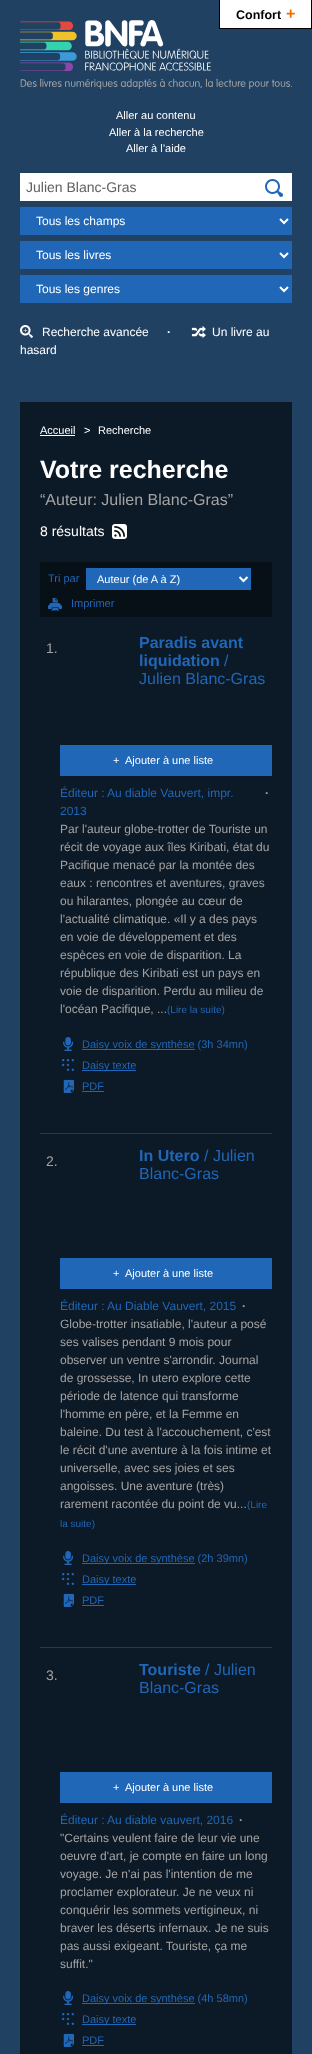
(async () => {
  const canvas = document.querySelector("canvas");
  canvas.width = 312;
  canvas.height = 2054;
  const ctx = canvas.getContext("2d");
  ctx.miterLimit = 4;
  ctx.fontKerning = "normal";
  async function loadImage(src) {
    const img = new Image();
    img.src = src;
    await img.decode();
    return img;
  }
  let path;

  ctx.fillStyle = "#204162";
  ctx.fillRect(0, 0, 312, 2054);
  ctx.drawImage(await loadImage("img/1.png"), 20, 20, 272, 69);
  for (const [x, y, w, h, color] of [
    [220, 0, 91, 28, "#ffffff"],
    [311, 0, 1, 29, "#000000"],
    [219, 28, 93, 1, "#000000"],
    [219, 0, 1, 29, "#000000"],
    [20, 173, 272, 28, "#ffffff"],
  ]) {
    ctx.fillStyle = color;
    ctx.fillRect(x, y, w, h);
  }
  ctx.drawImage(await loadImage("img/2.png"), 265, 179, 18, 18);
  ctx.fillStyle = "#2067b7";
  ctx.fillRect(20, 207, 272, 28);
  path = new Path2D("M280 219L284 223L288 219");
  ctx.strokeStyle = "#ffffff";
  ctx.lineWidth = 2;
  ctx.stroke(path);
  ctx.fillRect(20, 241, 272, 28);
  path = new Path2D("M280 253L284 257L288 253");
  ctx.stroke(path);
  ctx.fillRect(20, 275, 272, 28);
  path = new Path2D("M280 287L284 291L288 287");
  ctx.stroke(path);
  ctx.drawImage(await loadImage("img/3.png"), 191, 326, 15, 12);
  ctx.drawImage(await loadImage("img/4.png"), 20, 325, 13, 13);
  ctx.fillStyle = "#0c1926";
  ctx.fillRect(20, 402, 272, 1652);
  ctx.fillStyle = "#ffffff";
  ctx.fillRect(40, 435, 35, 1);
  ctx.drawImage(await loadImage("img/5.png"), 112, 524, 15, 15);
  ctx.fillStyle = "#070f17";
  ctx.fillRect(40, 562, 232, 55);
  ctx.fillStyle = "#2067b7";
  ctx.fillRect(86, 568, 165, 22);
  path = new Path2D("M239.5 577L243.5 581L247.5 577");
  ctx.stroke(path);
  ctx.drawImage(await loadImage("img/6.png"), 48, 598, 14, 13);
  ctx.fillRect(60, 745, 212, 31);
  ctx.drawImage(await loadImage("img/7.png"), 63, 1037, 11, 14);
  ctx.fillRect(82, 1049, 113, 1);
  ctx.drawImage(await loadImage("img/8.png"), 62, 1059, 12, 12);
  ctx.fillRect(82, 1070, 54, 1);
  ctx.drawImage(await loadImage("img/9.png"), 63, 1079, 11, 14);
  for (const [x, y, w, h, color] of [
    [82, 1091, 22, 1, "#2067b7"],
    [40, 1133, 232, 1, "#1d3b59"],
    [60, 1258, 212, 31, "#2067b7"],
  ]) {
    ctx.fillStyle = color;
    ctx.fillRect(x, y, w, h);
  }
  ctx.drawImage(await loadImage("img/7.png"), 63, 1551, 11, 14);
  ctx.fillRect(82, 1563, 113, 1);
  ctx.drawImage(await loadImage("img/8.png"), 62, 1573, 12, 12);
  ctx.fillRect(82, 1584, 54, 1);
  ctx.drawImage(await loadImage("img/9.png"), 63, 1593, 11, 14);
  for (const [x, y, w, h, color] of [
    [82, 1605, 22, 1, "#2067b7"],
    [40, 1647, 232, 1, "#1d3b59"],
    [60, 1772, 212, 31, "#2067b7"],
  ]) {
    ctx.fillStyle = color;
    ctx.fillRect(x, y, w, h);
  }
  ctx.drawImage(await loadImage("img/7.png"), 63, 1991, 11, 14);
  ctx.fillRect(82, 2003, 113, 1);
  ctx.drawImage(await loadImage("img/8.png"), 62, 2013, 12, 12);
  ctx.fillRect(82, 2024, 54, 1);
  ctx.drawImage(await loadImage("img/9.png"), 63, 2033, 11, 14);
  ctx.fillRect(82, 2045, 22, 1);
  ctx.font = "bold 12.5px Liberation Sans";
  ctx.fillStyle = "#000000";
  ctx.fillText("Confort", 236, 19);
  ctx.font = "bold 16px Liberation Sans";
  ctx.fillStyle = "#f16e00";
  ctx.fillText("+", 286, 19);
  ctx.font = "11px Liberation Sans";
  ctx.fillStyle = "#ffffff";
  for (const [text, x, y] of [
    ["Aller au contenu", 116, 119],
    ["Aller à la recherche", 109, 136],
    ["Aller à l’aide", 126, 152],
  ]) {
    ctx.fillText(text, x, y);
  }
  ctx.font = "14px Liberation Sans";
  ctx.fillStyle = "#60605f";
  ctx.fillText("Julien Blanc-Gras", 26, 192);
  ctx.font = "12px Liberation Sans";
  ctx.fillStyle = "#ffffff";
  for (const [text, x, y] of [
    ["Tous les champs", 36, 225],
    ["Tous les livres", 36, 259],
    ["Tous les genres", 36, 293],
    ["Un livre au", 212, 336],
    ["hasard", 20, 354],
    ["Recherche avancée", 42, 336],
  ]) {
    ctx.fillText(text, x, y);
  }
  ctx.font = "bold 12px Liberation Sans";
  ctx.fillText(".", 167, 333);
  ctx.font = "11px Liberation Sans";
  for (const [text, x, y] of [
    ["Accueil", 40, 434],
    [">", 84, 434],
    ["Recherche", 98, 434],
  ]) {
    ctx.fillText(text, x, y);
  }
  ctx.font = "bold 25px Liberation Sans";
  ctx.fillText("Votre recherche", 40, 478);
  ctx.font = "16px Liberation Sans";
  ctx.fillStyle = "#a4a3a3";
  ctx.fillText("“Auteur: Julien Blanc-Gras”", 40, 505);
  ctx.font = "14px Liberation Sans";
  ctx.fillStyle = "#ffffff";
  ctx.fillText("8 résultats", 40, 536);
  ctx.font = "11px Liberation Sans";
  ctx.fillStyle = "#2067b7";
  ctx.fillText("Tri par", 48, 582);
  ctx.fillStyle = "#ffffff";
  ctx.fillText("Auteur (de A à Z)", 97, 583);
  ctx.fillStyle = "#2067b7";
  ctx.fillText("Imprimer", 71, 607);
  ctx.font = "14px Liberation Sans";
  ctx.fillStyle = "#a4a3a3";
  ctx.fillText("1.", 46, 653);
  ctx.font = "bold 16px Liberation Sans";
  ctx.fillStyle = "#2067b7";
  ctx.fillText("Paradis avant", 139, 648);
  ctx.fillText("liquidation", 139, 666);
  ctx.font = "16px Liberation Sans";
  ctx.fillText("/", 224, 666);
  ctx.fillText("Julien Blanc-Gras", 139, 684);
  ctx.font = "11px Liberation Sans";
  ctx.fillStyle = "#ffffff";
  ctx.fillText("+", 113, 764);
  ctx.fillText("Ajouter à une liste", 125, 764);
  ctx.font = "12px Liberation Sans";
  ctx.fillStyle = "#2067b7";
  ctx.fillText("Éditeur :", 60, 797);
  ctx.fillText("Au diable Vauvert, impr.", 107, 797);
  ctx.font = "bold 12px Liberation Sans";
  ctx.fillStyle = "#a4a3a3";
  ctx.fillText(".", 265, 794);
  ctx.font = "12px Liberation Sans";
  ctx.fillStyle = "#2067b7";
  ctx.fillText("2013", 60, 815);
  ctx.fillStyle = "#a4a3a3";
  for (const [text, x, y] of [
    ["Par l'auteur globe-trotter de Touriste un", 60, 833],
    ["récit de voyage aux îles Kiribati, état du", 60, 851],
    ["Pacifique menacé par la montée des", 60, 869],
    ["eaux : rencontres et aventures, graves", 60, 887],
    ["ou hilarantes, plongée au cœur de", 60, 905],
    ["l'actualité climatique. «Il y a des pays", 60, 923],
    ["en voie de développement et des", 60, 941],
    ["espèces en voie de disparition. La", 60, 959],
    ["république des Kiribati est un pays en", 60, 977],
    ["voie de disparition. Perdu au milieu de", 60, 995],
    ["l'océan Pacifique, ...", 60, 1013],
  ]) {
    ctx.fillText(text, x, y);
  }
  ctx.font = "10px Liberation Sans";
  ctx.fillStyle = "#2067b7";
  ctx.fillText("(Lire la suite)", 167, 1013);
  ctx.font = "11px Liberation Sans";
  for (const [text, x, y] of [
    ["Daisy voix de synthèse (3h 34mn)", 82, 1048],
    ["Daisy texte", 82, 1069],
    ["PDF", 82, 1090],
  ]) {
    ctx.fillText(text, x, y);
  }
  ctx.font = "14px Liberation Sans";
  ctx.fillStyle = "#a4a3a3";
  ctx.fillText("2.", 46, 1166);
  ctx.font = "bold 16px Liberation Sans";
  ctx.fillStyle = "#2067b7";
  ctx.fillText("In Utero", 139, 1161);
  ctx.font = "16px Liberation Sans";
  ctx.fillText("/ Julien", 204, 1161);
  ctx.fillText("Blanc-Gras", 139, 1179);
  ctx.font = "11px Liberation Sans";
  ctx.fillStyle = "#ffffff";
  ctx.fillText("+", 113, 1277);
  ctx.fillText("Ajouter à une liste", 125, 1277);
  ctx.font = "12px Liberation Sans";
  ctx.fillStyle = "#2067b7";
  ctx.fillText("Éditeur :", 60, 1310);
  ctx.fillText("Au Diable Vauvert, 2015", 107, 1310);
  ctx.font = "bold 12px Liberation Sans";
  ctx.fillStyle = "#a4a3a3";
  ctx.fillText(".", 242, 1307);
  ctx.font = "12px Liberation Sans";
  for (const [text, x, y] of [
    ["Globe-trotter insatiable, l'auteur a posé", 60, 1328],
    ["ses valises pendant 9 mois pour", 60, 1346],
    ["observer un ventre s'arrondir. Journal", 60, 1364],
    ["de grossesse, In utero explore cette", 60, 1382],
    ["période de latence qui transforme", 60, 1400],
    ["l'homme en père, et la Femme en", 60, 1418],
    ["baleine. Du test à l'accouchement, c'est", 60, 1436],
    ["le récit d'une aventure à la fois intime et", 60, 1454],
    ["universelle, avec ses joies et ses", 60, 1472],
    ["angoisses. Une aventure (très)", 60, 1490],
    ["rarement racontée du point de vu...", 60, 1508],
  ]) {
    ctx.fillText(text, x, y);
  }
  ctx.font = "10px Liberation Sans";
  ctx.fillStyle = "#2067b7";
  ctx.fillText("(Lire", 247, 1508);
  ctx.fillText("la suite)", 60, 1527);
  ctx.font = "11px Liberation Sans";
  for (const [text, x, y] of [
    ["Daisy voix de synthèse (2h 39mn)", 82, 1562],
    ["Daisy texte", 82, 1583],
    ["PDF", 82, 1604],
  ]) {
    ctx.fillText(text, x, y);
  }
  ctx.font = "14px Liberation Sans";
  ctx.fillStyle = "#a4a3a3";
  ctx.fillText("3.", 46, 1680);
  ctx.font = "bold 16px Liberation Sans";
  ctx.fillStyle = "#2067b7";
  ctx.fillText("Touriste", 139, 1675);
  ctx.font = "16px Liberation Sans";
  ctx.fillText("/ Julien", 205, 1675);
  ctx.fillText("Blanc-Gras", 139, 1693);
  ctx.font = "11px Liberation Sans";
  ctx.fillStyle = "#ffffff";
  ctx.fillText("+", 113, 1791);
  ctx.fillText("Ajouter à une liste", 125, 1791);
  ctx.font = "12px Liberation Sans";
  ctx.fillStyle = "#2067b7";
  ctx.fillText("Éditeur :", 60, 1824);
  ctx.fillText("Au diable vauvert, 2016", 107, 1824);
  ctx.font = "bold 12px Liberation Sans";
  ctx.fillStyle = "#a4a3a3";
  ctx.fillText(".", 239, 1821);
  ctx.font = "12px Liberation Sans";
  for (const [text, x, y] of [
    ["\"Certains veulent faire de leur vie une", 60, 1842],
    ["oeuvre d'art, je compte en faire un long", 60, 1860],
    ["voyage. Je n'ai pas l'intention de me", 60, 1878],
    ["proclamer explorateur. Je ne veux ni", 60, 1896],
    ["conquérir les sommets vertigineux, ni", 60, 1914],
    ["braver les déserts infernaux. Je ne suis", 60, 1932],
    ["pas aussi exigeant. Touriste, ça me", 60, 1950],
    ["suffit.\"", 60, 1968],
  ]) {
    ctx.fillText(text, x, y);
  }
  ctx.font = "11px Liberation Sans";
  ctx.fillStyle = "#2067b7";
  for (const [text, x, y] of [
    ["Daisy voix de synthèse (4h 58mn)", 82, 2002],
    ["Daisy texte", 82, 2023],
    ["PDF", 82, 2044],
  ]) {
    ctx.fillText(text, x, y);
  }
})();
